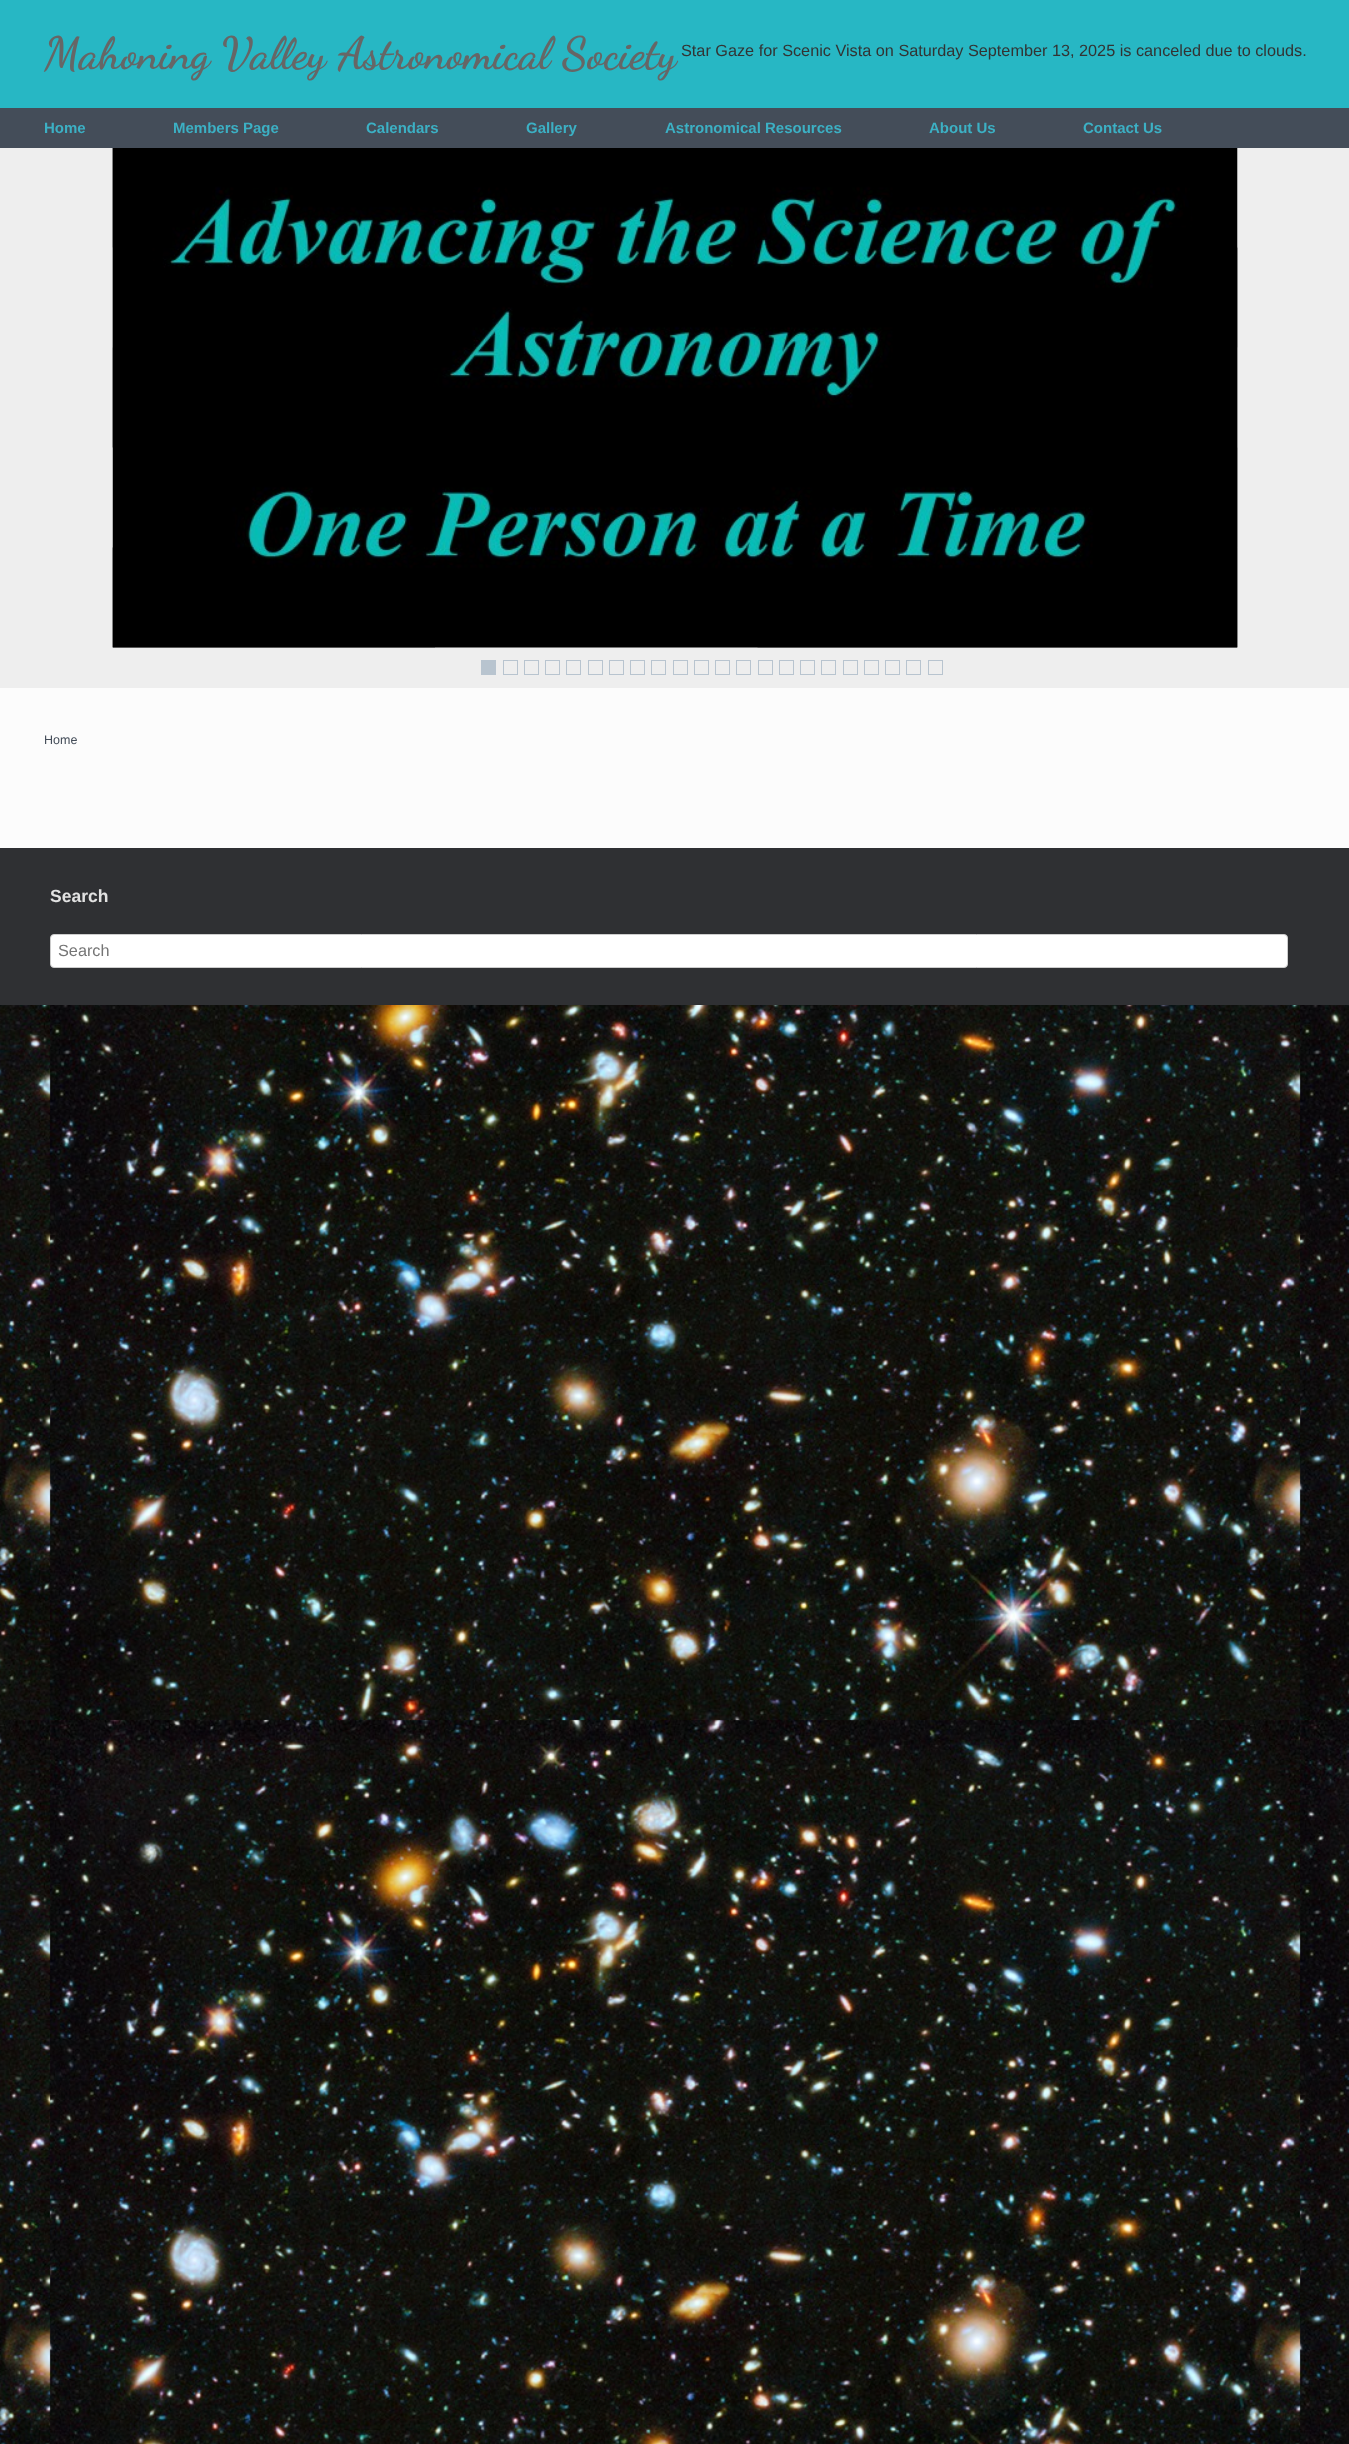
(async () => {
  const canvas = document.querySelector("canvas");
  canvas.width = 1349;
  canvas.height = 2444;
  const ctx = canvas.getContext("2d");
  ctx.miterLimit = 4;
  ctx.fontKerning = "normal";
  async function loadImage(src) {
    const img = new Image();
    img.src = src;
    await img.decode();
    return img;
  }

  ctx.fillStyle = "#ffffff";
  ctx.fillRect(0, 0, 1349, 2444);
  ctx.drawImage(await loadImage("img/1.png"), 0, 1005, 1349, 1439);
  for (const [x, y, w, h, color] of [
    [0, 0, 1349, 108, "#27b7c4"],
    [0, 108, 1349, 40, "#444d59"],
    [0, 148, 1349, 540, "#eeeeee"],
  ]) {
    ctx.fillStyle = color;
    ctx.fillRect(x, y, w, h);
  }
  ctx.drawImage(await loadImage("img/2.png"), 112, 148, 1126, 500);
  ctx.drawImage(await loadImage("img/3.png"), 112, 148, 162, 100);
  ctx.drawImage(await loadImage("img/4.png"), 273, 148, 162, 100);
  ctx.drawImage(await loadImage("img/5.png"), 435, 148, 162, 100);
  ctx.drawImage(await loadImage("img/6.png"), 596, 148, 162, 100);
  ctx.drawImage(await loadImage("img/7.png"), 757, 148, 161, 100);
  ctx.drawImage(await loadImage("img/8.png"), 917, 148, 161, 100);
  ctx.drawImage(await loadImage("img/9.png"), 1078, 148, 160, 99);
  ctx.drawImage(await loadImage("img/10.png"), 112, 247, 162, 101);
  ctx.drawImage(await loadImage("img/11.png"), 273, 247, 160, 16);
  ctx.drawImage(await loadImage("img/12.png"), 435, 247, 158, 101);
  ctx.drawImage(await loadImage("img/13.png"), 600, 247, 158, 101);
  ctx.drawImage(await loadImage("img/14.png"), 757, 247, 119, 101);
  ctx.drawImage(await loadImage("img/15.png"), 925, 247, 107, 1);
  ctx.drawImage(await loadImage("img/16.png"), 1081, 247, 157, 101);
  ctx.drawImage(await loadImage("img/17.png"), 112, 347, 1, 101);
  ctx.drawImage(await loadImage("img/18.png"), 457, 347, 140, 28);
  ctx.drawImage(await loadImage("img/19.png"), 596, 347, 162, 28);
  ctx.drawImage(await loadImage("img/20.png"), 757, 347, 120, 15);
  ctx.drawImage(await loadImage("img/21.png"), 1237, 347, 1, 101);
  ctx.drawImage(await loadImage("img/22.png"), 273, 495, 130, 53);
  ctx.drawImage(await loadImage("img/23.png"), 435, 494, 162, 54);
  ctx.drawImage(await loadImage("img/24.png"), 596, 512, 162, 36);
  ctx.drawImage(await loadImage("img/25.png"), 757, 497, 161, 51);
  ctx.drawImage(await loadImage("img/26.png"), 917, 497, 161, 51);
  ctx.drawImage(await loadImage("img/27.png"), 1077, 447, 161, 101);
  ctx.drawImage(await loadImage("img/28.png"), 112, 547, 162, 101);
  ctx.drawImage(await loadImage("img/29.png"), 273, 547, 162, 101);
  ctx.drawImage(await loadImage("img/30.png"), 757, 547, 161, 101);
  ctx.drawImage(await loadImage("img/31.png"), 917, 547, 161, 101);
  ctx.drawImage(await loadImage("img/32.png"), 1077, 547, 161, 101);
  ctx.fillStyle = "#b8c4cf";
  ctx.fillRect(481, 660, 15, 15);
  ctx.strokeStyle = "#b8c4cf";
  ctx.strokeRect(503.5, 660.5, 14, 14);
  ctx.strokeRect(524.5, 660.5, 14, 14);
  ctx.strokeRect(545.5, 660.5, 14, 14);
  ctx.strokeRect(566.5, 660.5, 14, 14);
  ctx.strokeRect(588.5, 660.5, 14, 14);
  ctx.strokeRect(609.5, 660.5, 14, 14);
  ctx.strokeRect(630.5, 660.5, 14, 14);
  ctx.strokeRect(651.5, 660.5, 14, 14);
  ctx.strokeRect(673.5, 660.5, 14, 14);
  ctx.strokeRect(694.5, 660.5, 14, 14);
  ctx.strokeRect(715.5, 660.5, 14, 14);
  ctx.strokeRect(736.5, 660.5, 14, 14);
  ctx.strokeRect(758.5, 660.5, 14, 14);
  ctx.strokeRect(779.5, 660.5, 14, 14);
  ctx.strokeRect(800.5, 660.5, 14, 14);
  ctx.strokeRect(821.5, 660.5, 14, 14);
  ctx.strokeRect(843.5, 660.5, 14, 14);
  ctx.strokeRect(864.5, 660.5, 14, 14);
  ctx.strokeRect(885.5, 660.5, 14, 14);
  ctx.strokeRect(906.5, 660.5, 14, 14);
  ctx.strokeRect(928.5, 660.5, 14, 14);
  ctx.fillStyle = "#fcfcfc";
  ctx.fillRect(0, 688, 1349, 160);
  ctx.fillStyle = "#2f3033";
  ctx.fillRect(0, 848, 1349, 157);
  ctx.fillStyle = "#ffffff";
  ctx.beginPath();
  ctx.roundRect(50.5, 934.5, 1237, 33, 3.5);
  ctx.fill();
  ctx.strokeStyle = "#cccccc";
  ctx.stroke();
  ctx.font = "bold 45px Dancing Script";
  ctx.fillStyle = "#666666";
  ctx.fillText("Mahoning Valley Astronomical Society", 44, 68);
  ctx.font = "16.25px Liberation Sans";
  ctx.fillStyle = "#333333";
  ctx.fillText("Star Gaze for Scenic Vista on Saturday September 13, 2025 is canceled due to clouds.", 681, 56);
  ctx.font = "bold 15px Liberation Sans";
  ctx.fillStyle = "#3cb0c4";
  for (const [text, x, y] of [
    ["Home", 44, 133],
    ["Members Page", 173, 133],
    ["Calendars", 366, 133],
    ["Gallery", 526, 133],
    ["Astronomical Resources", 665, 133],
    ["About Us", 929, 133],
    ["Contact Us", 1083, 133],
  ]) {
    ctx.fillText(text, x, y);
  }
  ctx.font = "12.5px Liberation Sans";
  ctx.fillStyle = "#444d59";
  ctx.fillText("Home", 44, 744);
  ctx.font = "bold 17.5px Liberation Sans";
  ctx.fillStyle = "#e2e2e2";
  ctx.fillText("Search", 50, 902);
  ctx.font = "16.25px Liberation Sans";
  ctx.fillStyle = "#757575";
  ctx.fillText("Search", 58, 956);
})();
